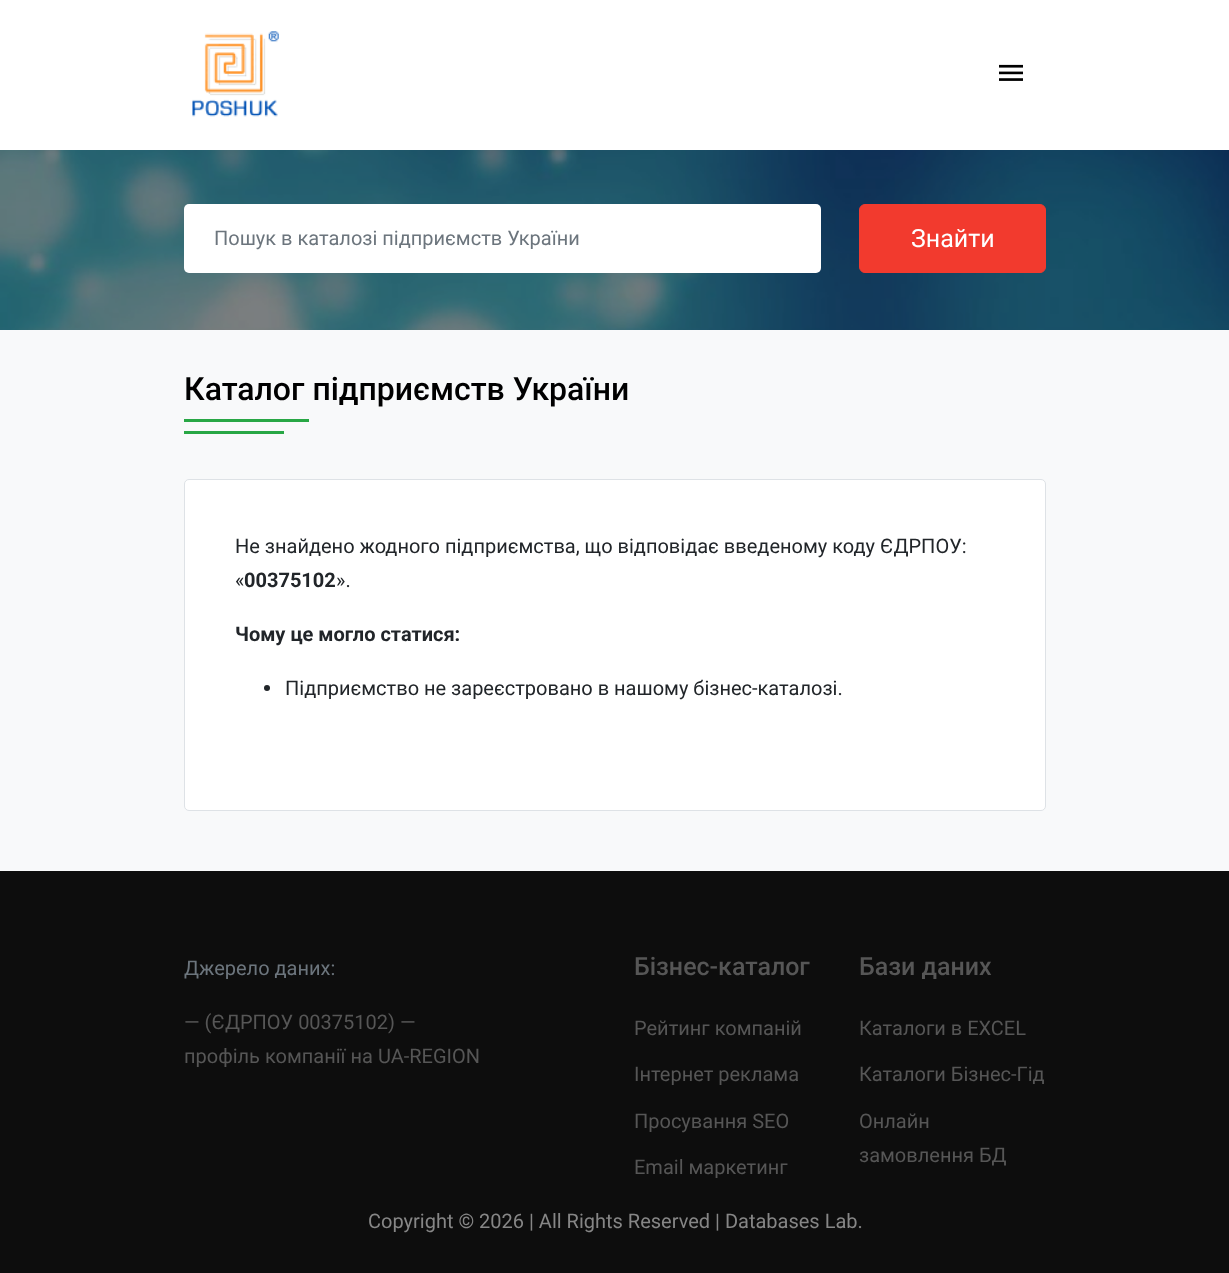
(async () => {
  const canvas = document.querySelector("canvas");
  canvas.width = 1229;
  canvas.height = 1273;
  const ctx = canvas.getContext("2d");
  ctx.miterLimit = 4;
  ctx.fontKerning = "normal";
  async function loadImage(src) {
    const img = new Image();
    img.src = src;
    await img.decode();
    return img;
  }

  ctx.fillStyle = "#0d0d0d";
  ctx.fillRect(0, 0, 1229, 1273);
  ctx.fillStyle = "#ffffff";
  ctx.fillRect(0, 0, 1229, 150);
  ctx.drawImage(await loadImage("img/1.png"), 192, 31, 87, 86);
  ctx.drawImage(await loadImage("img/2.png"), 999, 64, 24, 17);
  ctx.drawImage(await loadImage("img/3.png"), 0, 150, 1229, 180);
  ctx.beginPath();
  ctx.roundRect(184, 204, 637, 69, 5);
  ctx.fill();
  ctx.fillStyle = "#f23a2e";
  ctx.beginPath();
  ctx.roundRect(859.5, 204.5, 186, 68, 5.5);
  ctx.fill();
  ctx.strokeStyle = "#f23a2e";
  ctx.stroke();
  for (const [x, y, w, h, color] of [
    [0, 330, 1229, 541, "#f8f9fa"],
    [184, 419, 125, 3, "#28a745"],
    [184, 431, 100, 3, "#28a745"],
  ]) {
    ctx.fillStyle = color;
    ctx.fillRect(x, y, w, h);
  }
  ctx.fillStyle = "#ffffff";
  ctx.beginPath();
  ctx.roundRect(184.5, 479.5, 861, 331, 4.5);
  ctx.fill();
  ctx.strokeStyle = "#dee2e6";
  ctx.stroke();
  ctx.fillStyle = "#212529";
  ctx.beginPath();
  ctx.arc(267, 688, 3, 0, Math.PI * 2);
  ctx.fill();
  ctx.font = "20px Roboto";
  ctx.fillStyle = "#6c757d";
  ctx.fillText("Пошук в каталозі підприємств України", 214, 245);
  ctx.font = "25px Roboto";
  ctx.fillStyle = "#ffffff";
  ctx.fillText("Знайти", 911, 247);
  ctx.font = "500 32px Roboto";
  ctx.fillStyle = "#000000";
  ctx.fillText("Каталог підприємств України", 184, 400);
  ctx.font = "20px Roboto";
  ctx.fillStyle = "#212529";
  ctx.fillText("Не знайдено жодного підприємства, що відповідає введеному коду ЄДРПОУ:", 235, 553);
  ctx.fillText("«", 235, 587);
  ctx.font = "bold 20px Roboto";
  ctx.fillText("00375102", 244, 587);
  ctx.font = "20px Roboto";
  ctx.fillText("».", 336, 587);
  ctx.font = "bold 20px Roboto";
  ctx.fillText("Чому це могло статися:", 235, 641);
  ctx.font = "20px Roboto";
  ctx.fillText("Підприємство не зареєстровано в нашому бізнес-каталозі.", 285, 695);
  ctx.fillStyle = "#6c757d";
  ctx.fillText("Джерело даних:", 184, 975);
  ctx.fillStyle = "#565656";
  ctx.fillText("— (ЄДРПОУ 00375102) —", 184, 1029);
  ctx.fillText("профіль компанії на UA-REGION", 184, 1063);
  ctx.font = "500 25px Roboto";
  ctx.fillText("Бізнес-каталог", 634, 975);
  ctx.font = "20px Roboto";
  for (const [text, x, y] of [
    ["Рейтинг компаній", 634, 1035],
    ["Інтернет реклама", 634, 1081],
    ["Просування SEO", 634, 1128],
    ["Email маркетинг", 634, 1174],
  ]) {
    ctx.fillText(text, x, y);
  }
  ctx.font = "500 25px Roboto";
  ctx.fillText("Бази даних", 859, 975);
  ctx.font = "20px Roboto";
  for (const [text, x, y] of [
    ["Каталоги в EXCEL", 859, 1035],
    ["Каталоги Бізнес-Гід", 859, 1081],
    ["Онлайн", 859, 1128],
    ["замовлення БД", 859, 1162],
  ]) {
    ctx.fillText(text, x, y);
  }
  ctx.fillStyle = "#868686";
  ctx.fillText("Copyright © 2026 | All Rights Reserved | Databases Lab.", 368, 1228);
})();
